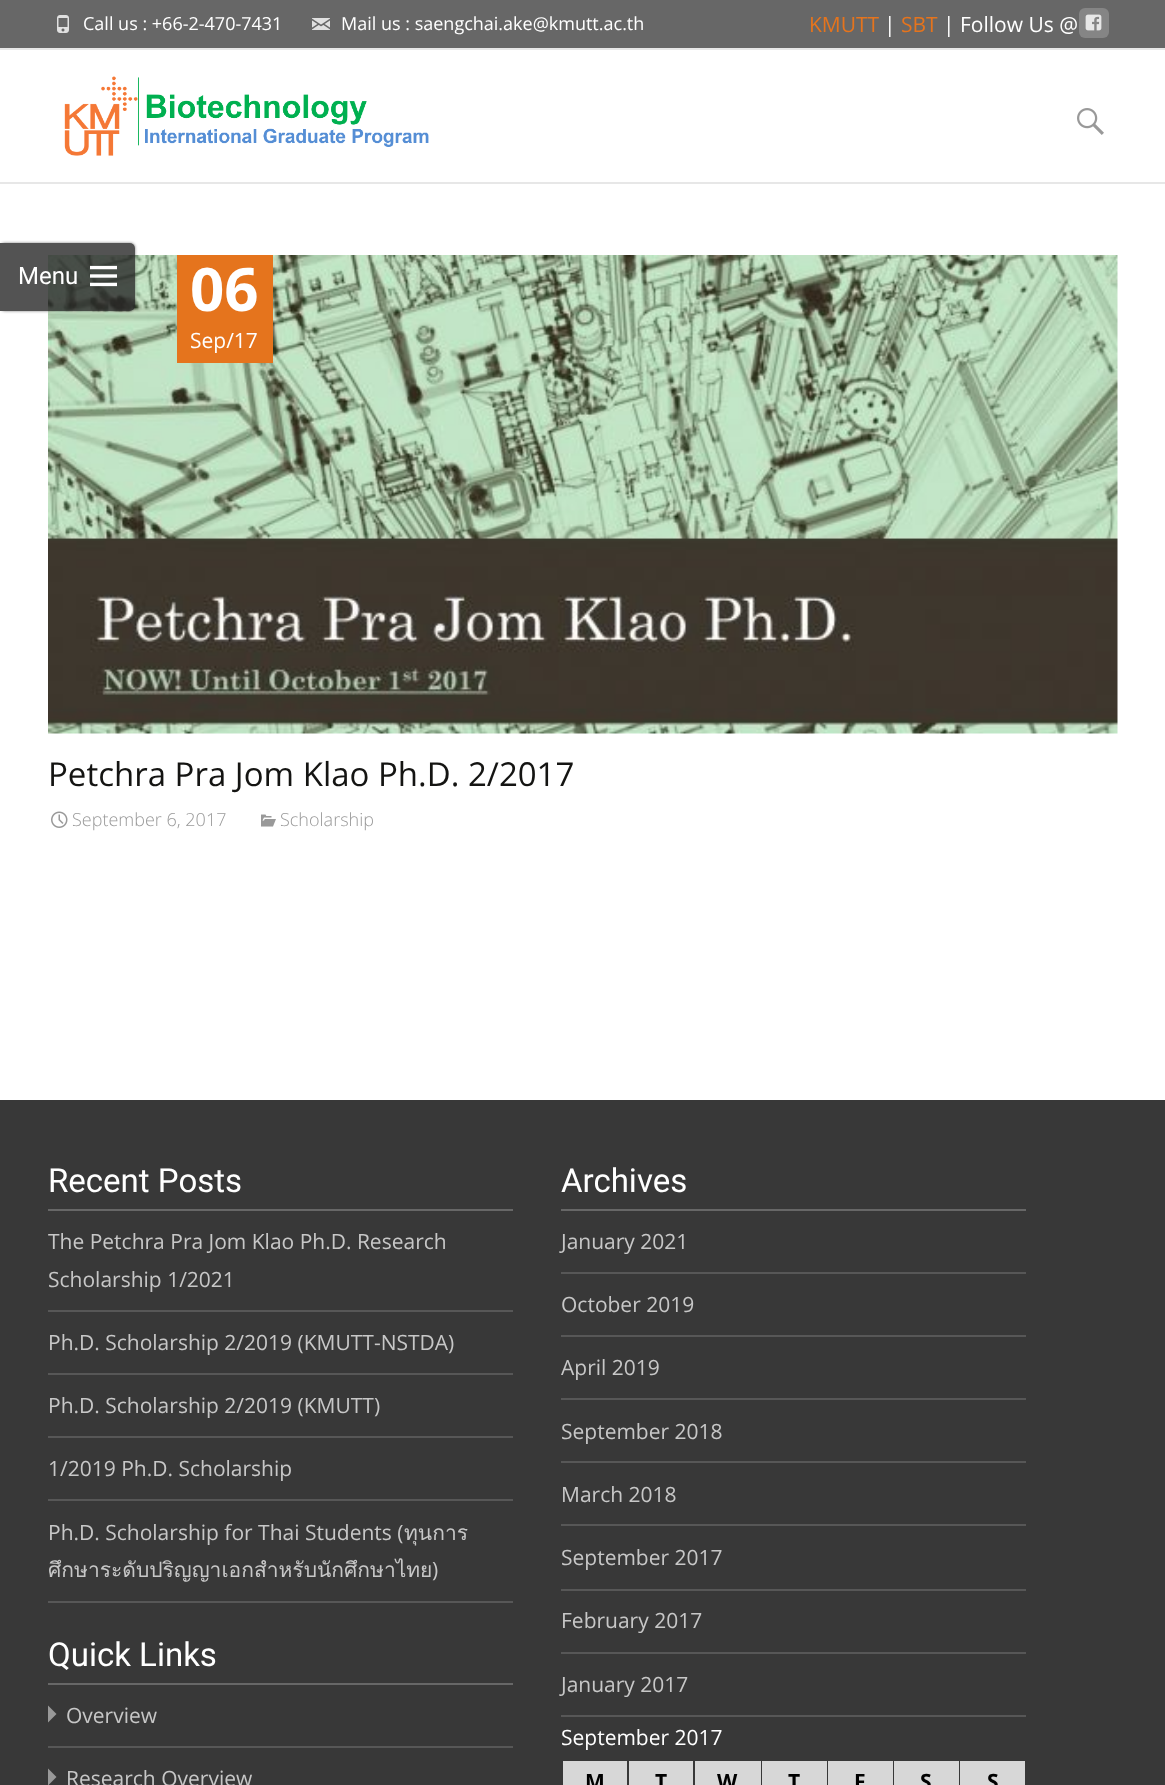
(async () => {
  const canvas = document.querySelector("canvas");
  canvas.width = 1165;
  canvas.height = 1785;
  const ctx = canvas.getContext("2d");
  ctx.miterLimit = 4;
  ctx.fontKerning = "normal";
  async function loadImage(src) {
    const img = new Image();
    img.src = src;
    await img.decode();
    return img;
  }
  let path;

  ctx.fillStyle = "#ffffff";
  ctx.fillRect(0, 0, 1165, 1785);
  ctx.fillStyle = "#676767";
  ctx.fillRect(0, 0, 1165, 48);
  ctx.fillStyle = "#e7e7e7";
  ctx.fillRect(0, 48, 1165, 2);
  ctx.drawImage(await loadImage("img/1.png"), 57, 15, 12, 18);
  ctx.drawImage(await loadImage("img/2.png"), 312, 18, 18, 12);
  ctx.fillStyle = "#858585";
  ctx.beginPath();
  ctx.roundRect(1079, 8, 30, 30, 6);
  ctx.fill();
  ctx.drawImage(await loadImage("img/3.png"), 1085, 14, 17, 17);
  ctx.fillStyle = "#e7e7e7";
  ctx.fillRect(0, 182, 1165, 2);
  ctx.drawImage(await loadImage("img/4.png"), 64, 76, 365, 80);
  ctx.drawImage(await loadImage("img/5.png"), 1077, 108, 27, 27);
  ctx.drawImage(await loadImage("img/7.png"), 48, 255, 1070, 479);
  ctx.save();
  path = new Path2D("M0 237H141V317H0ZM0 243H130C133 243 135 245 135 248V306C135 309 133 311 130 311H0Z");
  ctx.clip(path, "evenodd");
  ctx.fillStyle = "rgba(50, 50, 50, 0.64)";
  ctx.filter = "blur(1.5px)";
  ctx.beginPath();
  ctx.roundRect(0, 243, 135, 68, 5);
  ctx.fill();
  ctx.filter = "none";
  ctx.restore();
  ctx.fillStyle = "rgba(40, 40, 40, 0.8)";
  ctx.beginPath();
  ctx.roundRect(0, 243, 135, 68, [0, 5, 5, 0]);
  ctx.fill();
  ctx.drawImage(await loadImage("img/6.png"), 90, 265, 27, 22);
  ctx.fillStyle = "#e5741d";
  ctx.fillRect(177, 255, 96, 108);
  ctx.drawImage(await loadImage("img/8.png"), 51, 811, 17, 17);
  ctx.drawImage(await loadImage("img/9.png"), 261, 814, 15, 13);
  for (const [x, y, w, h, color] of [
    [0, 1100, 1165, 685, "#383838"],
    [48, 1209, 465, 2, "#676767"],
    [48, 1310, 465, 2, "#575757"],
    [48, 1373, 465, 2, "#575757"],
    [48, 1436, 465, 2, "#575757"],
    [48, 1499, 465, 2, "#575757"],
    [48, 1601, 465, 2, "#575757"],
    [561, 1209, 465, 2, "#676767"],
    [561, 1272, 465, 2, "#575757"],
    [561, 1335, 465, 2, "#575757"],
    [561, 1398, 465, 2, "#575757"],
    [561, 1461, 465, 2, "#575757"],
    [561, 1524, 465, 2, "#575757"],
    [561, 1589, 465, 2, "#575757"],
    [561, 1652, 465, 2, "#575757"],
    [561, 1715, 465, 2, "#575757"],
    [48, 1683, 465, 2, "#676767"],
    [48, 1746, 465, 2, "#575757"],
  ]) {
    ctx.fillStyle = color;
    ctx.fillRect(x, y, w, h);
  }
  ctx.fillStyle = "#999999";
  path = new Path2D("M48 1722.5L56.5 1714L48 1705.5Z");
  ctx.fill(path);
  path = new Path2D("M48 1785.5L56.5 1777L48 1768.5Z");
  ctx.fill(path);
  for (const [x, y, w, h, color] of [
    [563, 1761, 64, 24, "#d7d7d7"],
    [629, 1761, 64, 24, "#d7d7d7"],
    [695, 1761, 66, 24, "#d7d7d7"],
    [762, 1761, 65, 24, "#d7d7d7"],
    [828, 1761, 65, 24, "#d7d7d7"],
    [894, 1761, 65, 24, "#d7d7d7"],
    [960, 1761, 65, 24, "#d7d7d7"],
  ]) {
    ctx.fillStyle = color;
    ctx.fillRect(x, y, w, h);
  }
  ctx.font = "18px Open Sans";
  ctx.fillStyle = "#ffffff";
  ctx.fillText("Call us : +66-2-470-7431", 83, 30);
  ctx.fillText("Mail us : saengchai.ake@kmutt.ac.th", 341, 30);
  ctx.font = "21px Open Sans";
  ctx.fillStyle = "#e5741d";
  ctx.fillText("KMUTT", 809, 32);
  ctx.fillStyle = "#ffffff";
  ctx.fillText("|", 884, 32);
  ctx.fillStyle = "#e5741d";
  ctx.fillText("SBT", 901, 32);
  ctx.fillStyle = "#ffffff";
  ctx.fillText("| Follow Us @", 943, 32);
  ctx.font = "24px Roboto";
  ctx.fillText("Menu", 18, 284);
  ctx.font = "bold 60px Open Sans";
  ctx.fillText("06", 190, 311);
  ctx.font = "21px Open Sans";
  ctx.fillText("Sep/17", 190, 348);
  ctx.font = "33px Open Sans";
  ctx.fillStyle = "#141412";
  ctx.fillText("Petchra Pra Jom Klao Ph.D. 2/2017", 48, 786);
  ctx.font = "300 18px Open Sans";
  ctx.fillStyle = "#999999";
  ctx.fillText("September 6, 2017", 72, 826);
  ctx.fillText("Scholarship", 280, 826);
  ctx.font = "33px Roboto";
  ctx.fillStyle = "#ffffff";
  ctx.fillText("Recent Posts", 48, 1192);
  ctx.font = "21px Open Sans";
  ctx.fillStyle = "#c7c7c7";
  for (const [text, x, y] of [
    ["The Petchra Pra Jom Klao Ph.D. Research", 48, 1249],
    ["Scholarship 1/2021", 48, 1287],
    ["Ph.D. Scholarship 2/2019 (KMUTT-NSTDA)", 48, 1350],
    ["Ph.D. Scholarship 2/2019 (KMUTT)", 48, 1413],
    ["1/2019 Ph.D. Scholarship", 48, 1476],
    ["Ph.D. Scholarship for Thai Students (", 48, 1540],
  ]) {
    ctx.fillText(text, x, y);
  }
  ctx.font = "21px Loma";
  ctx.fillText("ทุนการ", 404, 1540);
  ctx.fillText("ศึกษาระดับปริญญาเอกสำหรับนักศึกษาไทย", 48, 1577);
  ctx.font = "21px Open Sans";
  ctx.fillText(")", 432, 1577);
  ctx.font = "33px Roboto";
  ctx.fillStyle = "#ffffff";
  ctx.fillText("Archives", 561, 1192);
  ctx.font = "21px Open Sans";
  ctx.fillStyle = "#c7c7c7";
  for (const [text, x, y] of [
    ["January 2021", 561, 1249],
    ["October 2019", 561, 1312],
    ["April 2019", 561, 1375],
    ["September 2018", 561, 1439],
    ["March 2018", 561, 1502],
    ["September 2017", 561, 1565],
    ["February 2017", 561, 1628],
    ["January 2017", 561, 1692],
  ]) {
    ctx.fillText(text, x, y);
  }
  ctx.font = "33px Roboto";
  ctx.fillStyle = "#ffffff";
  ctx.fillText("Quick Links", 48, 1666);
  ctx.font = "21px Open Sans";
  ctx.fillStyle = "#c7c7c7";
  ctx.fillText("Overview", 66, 1723);
  ctx.fillText("Research Overview", 66, 1786);
  ctx.fillStyle = "#ffffff";
  ctx.fillText("September 2017", 561, 1745);
  ctx.font = "bold 21px Open Sans";
  ctx.fillStyle = "#000000";
  for (const [text, x, y] of [
    ["M", 585, 1789],
    ["T", 655, 1789],
    ["W", 717, 1789],
    ["T", 788, 1789],
    ["F", 854, 1789],
    ["S", 920, 1789],
    ["S", 987, 1789],
  ]) {
    ctx.fillText(text, x, y);
  }
})();
